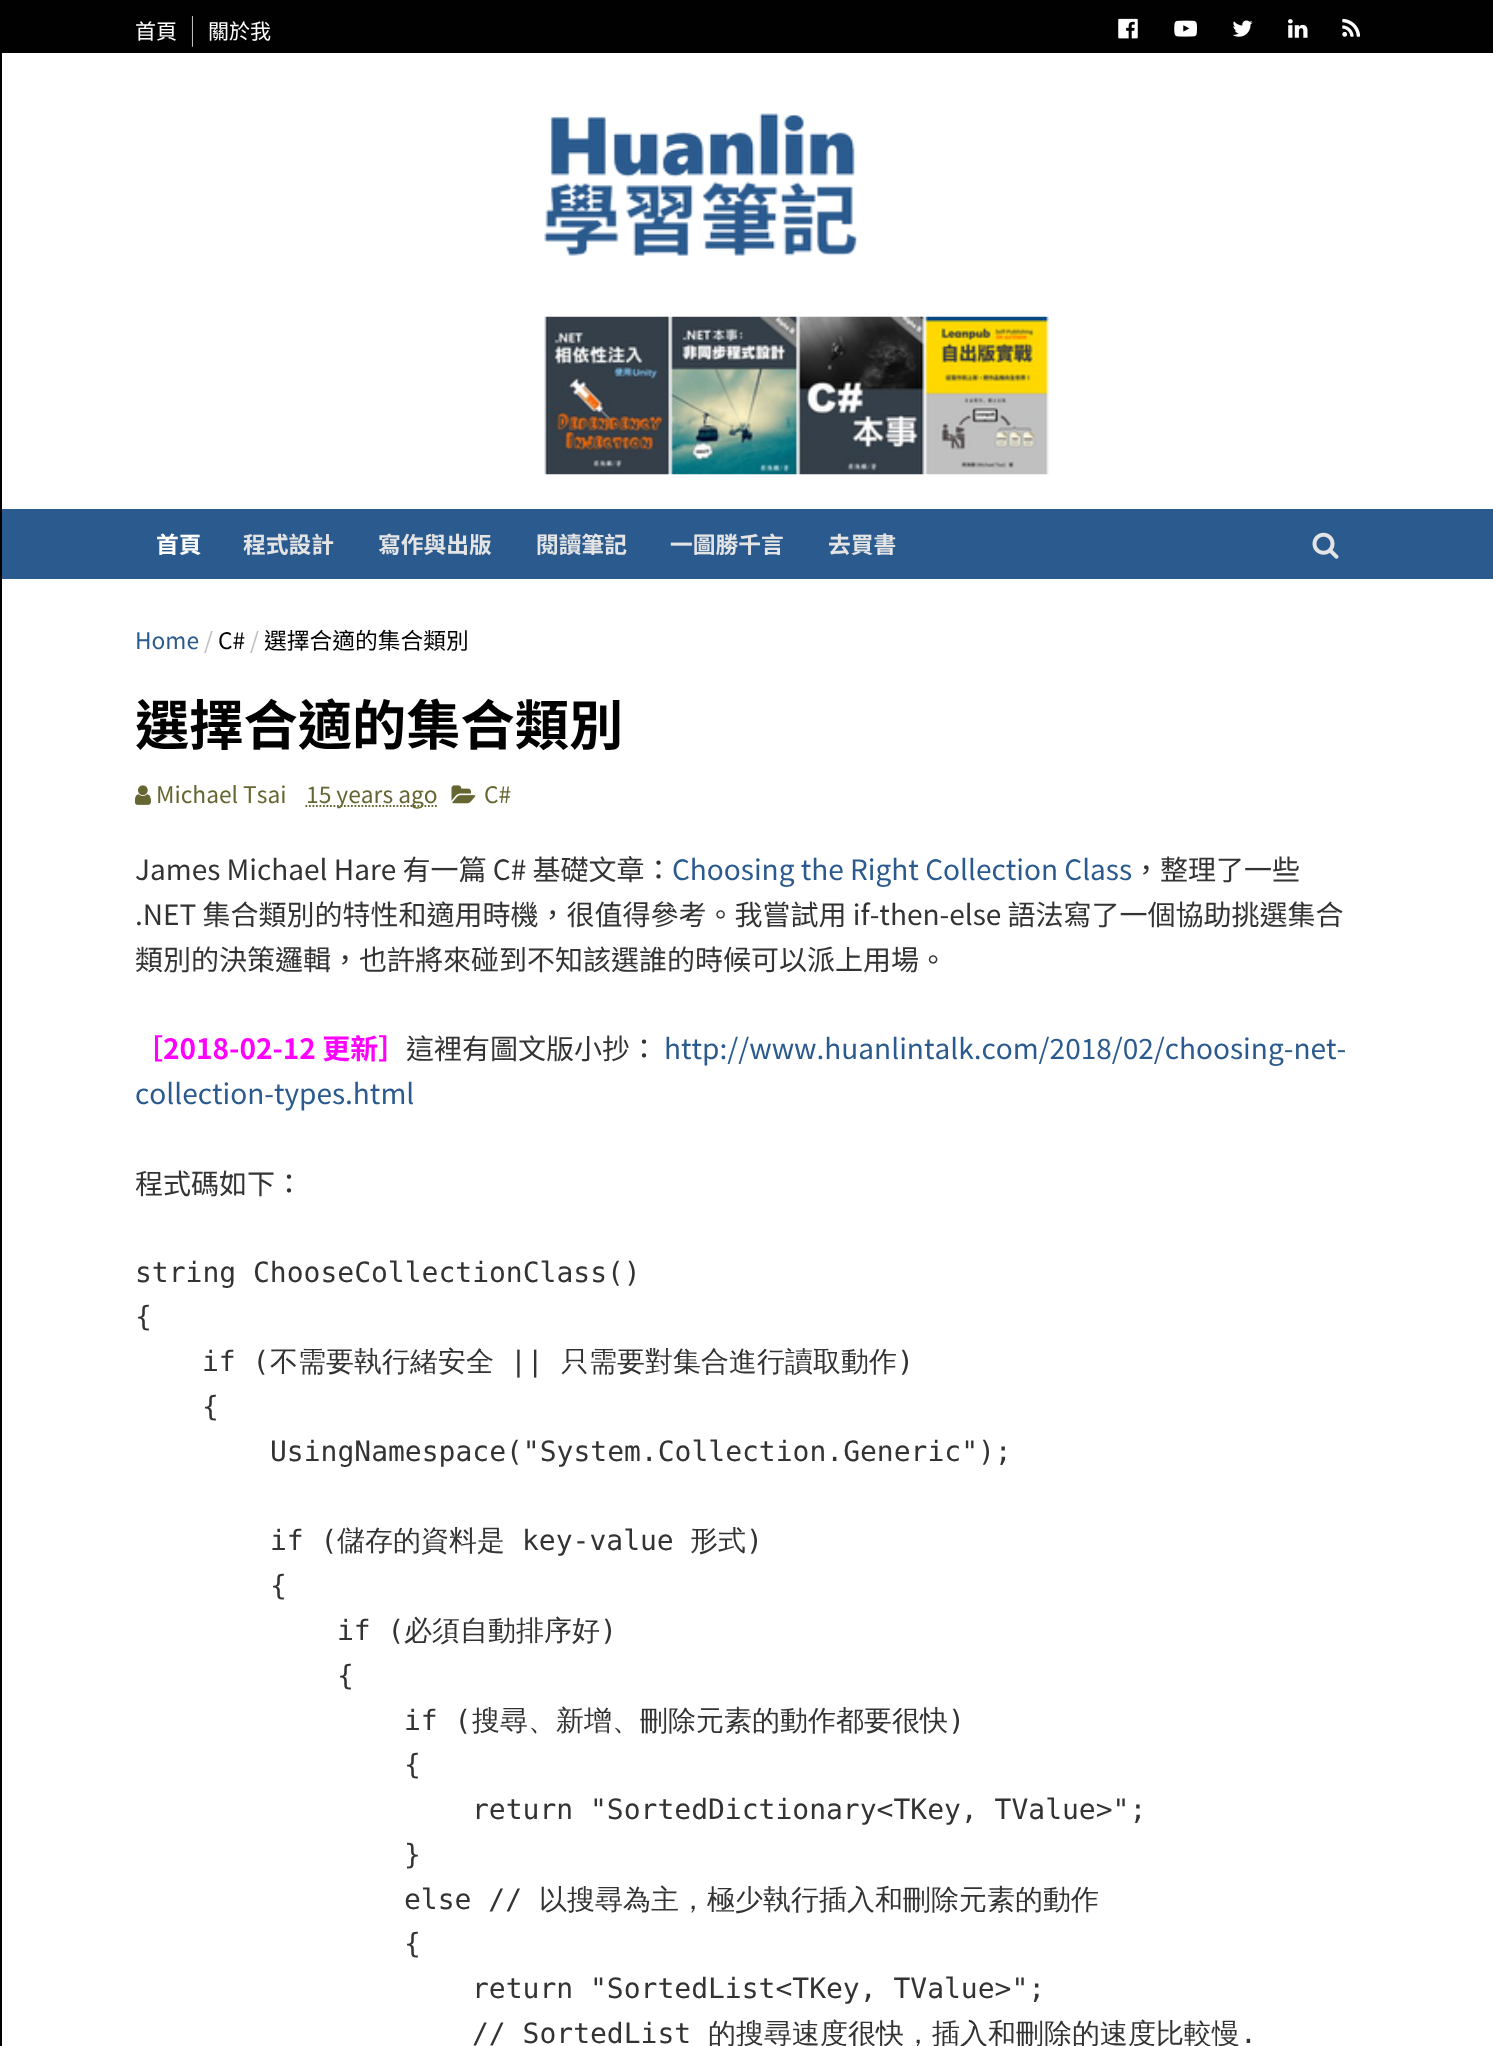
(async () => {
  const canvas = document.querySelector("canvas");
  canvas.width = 1493;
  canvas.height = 2046;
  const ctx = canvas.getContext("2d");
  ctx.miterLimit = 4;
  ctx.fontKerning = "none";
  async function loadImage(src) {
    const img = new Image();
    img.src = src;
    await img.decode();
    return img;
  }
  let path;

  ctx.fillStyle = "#ffffff";
  ctx.fillRect(0, 0, 1493, 2046);
  ctx.fillStyle = "#010101";
  ctx.fillRect(0, 0, 2, 2046);
  ctx.fillRect(2, 0, 1491, 53);
  ctx.drawImage(await loadImage("img/1.png"), 1118, 18, 20, 21);
  ctx.drawImage(await loadImage("img/2.png"), 1174, 20, 23, 17);
  ctx.drawImage(await loadImage("img/3.png"), 1232, 20, 21, 17);
  ctx.drawImage(await loadImage("img/4.png"), 1288, 19, 20, 19);
  ctx.drawImage(await loadImage("img/5.png"), 1342, 18, 18, 19);
  ctx.drawImage(await loadImage("img/6.png"), 544, 113, 314, 143);
  ctx.drawImage(await loadImage("img/7.png"), 544, 316, 505, 159);
  ctx.fillStyle = "#2a5a8e";
  ctx.fillRect(2, 509, 1491, 70);
  ctx.drawImage(await loadImage("img/8.png"), 1312, 532, 27, 27);
  ctx.drawImage(await loadImage("img/9.png"), 135, 785, 16, 20);
  path = new Path2D("M305.5 806H437");
  ctx.strokeStyle = "#666633";
  ctx.lineWidth = 1.8;
  ctx.setLineDash([1.75, 1.75]);
  ctx.stroke(path);
  ctx.drawImage(await loadImage("img/10.png"), 451, 785, 25, 19);
  ctx.font = "21px Noto Sans CJK TC";
  ctx.fillStyle = "#ffffff";
  ctx.fillText("首頁", 135, 39);
  ctx.font = "100 28px Noto Sans CJK TC";
  ctx.fillStyle = "#dddddd";
  ctx.fillText("|", 189, 39);
  ctx.font = "21px Noto Sans CJK TC";
  ctx.fillStyle = "#ffffff";
  ctx.fillText("關於我", 208, 39);
  ctx.font = "bold 22.75px Noto Sans CJK TC";
  ctx.fillText("首頁", 156, 553);
  ctx.fillStyle = "#e4e4e4";
  for (const [text, x, y] of [
    ["程式設計", 243, 553],
    ["寫作與出版", 378, 553],
    ["閱讀筆記", 536, 553],
    ["一圖勝千言", 670, 553],
    ["去買書", 828, 553],
  ]) {
    ctx.fillText(text, x, y);
  }
  ctx.font = "22.75px Noto Sans CJK TC";
  ctx.fillStyle = "#2a5a8e";
  ctx.fillText("Home", 135, 649);
  ctx.fillStyle = "#bdbdbd";
  ctx.fillText("/", 204, 649);
  ctx.fillStyle = "#010101";
  ctx.fillText("C#", 218, 649);
  ctx.fillStyle = "#bdbdbd";
  ctx.fillText("/", 250, 649);
  ctx.fillStyle = "#010101";
  ctx.fillText("選擇合適的集合類別", 264, 649);
  ctx.font = "bold 54.25px Noto Sans CJK TC";
  ctx.fillText("選擇合適的集合類別", 135, 745);
  ctx.font = "22.75px Noto Sans CJK TC";
  ctx.fillStyle = "#666633";
  for (const [text, x, y] of [
    ["Michael Tsai", 156, 803],
    ["15 years ago", 306, 803],
    ["C#", 484, 803],
  ]) {
    ctx.fillText(text, x, y);
  }
  ctx.font = "28px Noto Sans CJK TC";
  ctx.fillStyle = "#333333";
  ctx.fillText("James Michael Hare 有一篇 C# 基礎文章：", 135, 880);
  ctx.fillStyle = "#2a5a8e";
  ctx.fillText("Choosing the Right Collection Class", 672, 880);
  ctx.fillStyle = "#333333";
  for (const [text, x, y] of [
    ["，整理了一些", 1132, 880],
    [".NET 集合類別的特性和適用時機，很值得參考。我嘗試用 if-then-else 語法寫了一個協助挑選集合", 135, 925],
    ["類別的決策邏輯，也許將來碰到不知該選誰的時候可以派上用場。", 135, 970],
  ]) {
    ctx.fillText(text, x, y);
  }
  ctx.font = "bold 28px Noto Sans CJK TC";
  ctx.fillStyle = "#ff00ff";
  ctx.fillText("［2018-02-12 更新］", 135, 1059);
  ctx.font = "28px Noto Sans CJK TC";
  ctx.fillStyle = "#333333";
  ctx.fillText("這裡有圖文版小抄：", 406, 1059);
  ctx.fillStyle = "#2a5a8e";
  ctx.fillText("http://www.huanlintalk.com/2018/02/choosing-net-", 664, 1059);
  ctx.fillText("collection-types.html", 135, 1104);
  ctx.fillStyle = "#333333";
  ctx.fillText("程式碼如下：", 135, 1194);
  ctx.font = "28px DejaVu Sans Mono";
  for (const [text, x, y] of [
    ["string ChooseCollectionClass()", 135, 1282],
    ["{", 135, 1326],
    ["if (", 202, 1371],
  ]) {
    ctx.fillText(text, x, y);
  }
  ctx.font = "500 28px WenQuanYi Zen Hei";
  ctx.fillText("不需要執行緒安全", 270, 1371);
  ctx.font = "28px DejaVu Sans Mono";
  ctx.fillText("||", 510, 1371);
  ctx.font = "500 28px WenQuanYi Zen Hei";
  ctx.fillText("只需要對集合進行讀取動作", 561, 1371);
  ctx.font = "28px DejaVu Sans Mono";
  for (const [text, x, y] of [
    [")", 897, 1371],
    ["{", 202, 1416],
    ["UsingNamespace(\"System.Collection.Generic\");", 270, 1461],
    ["if (", 270, 1550],
  ]) {
    ctx.fillText(text, x, y);
  }
  ctx.font = "500 28px WenQuanYi Zen Hei";
  ctx.fillText("儲存的資料是", 337, 1550);
  ctx.font = "28px DejaVu Sans Mono";
  ctx.fillText("key-value", 522, 1550);
  ctx.font = "500 28px WenQuanYi Zen Hei";
  ctx.fillText("形式", 690, 1550);
  ctx.font = "28px DejaVu Sans Mono";
  for (const [text, x, y] of [
    [")", 746, 1550],
    ["{", 270, 1595],
    ["if (", 337, 1640],
  ]) {
    ctx.fillText(text, x, y);
  }
  ctx.font = "500 28px WenQuanYi Zen Hei";
  ctx.fillText("必須自動排序好", 404, 1640);
  ctx.font = "28px DejaVu Sans Mono";
  for (const [text, x, y] of [
    [")", 600, 1640],
    ["{", 337, 1685],
    ["if (", 404, 1730],
  ]) {
    ctx.fillText(text, x, y);
  }
  ctx.font = "500 28px WenQuanYi Zen Hei";
  ctx.fillText("搜尋、新增、刪除元素的動作都要很快", 472, 1730);
  ctx.font = "28px DejaVu Sans Mono";
  for (const [text, x, y] of [
    [")", 948, 1730],
    ["{", 404, 1774],
    ["return \"SortedDictionary<TKey, TValue>\";", 472, 1819],
    ["}", 404, 1864],
    ["else //", 404, 1909],
  ]) {
    ctx.fillText(text, x, y);
  }
  ctx.font = "500 28px WenQuanYi Zen Hei";
  ctx.fillText("以搜尋為主，極少執行插入和刪除元素的動作", 539, 1909);
  ctx.font = "28px DejaVu Sans Mono";
  for (const [text, x, y] of [
    ["{", 404, 1953],
    ["return \"SortedList<TKey, TValue>\";", 472, 1998],
    ["// SortedList", 472, 2043],
  ]) {
    ctx.fillText(text, x, y);
  }
  ctx.font = "500 28px WenQuanYi Zen Hei";
  ctx.fillText("的搜尋速度很快，插入和刪除的速度比較慢", 708, 2043);
  ctx.font = "28px DejaVu Sans Mono";
  ctx.fillText(".", 1240, 2043);
})();
